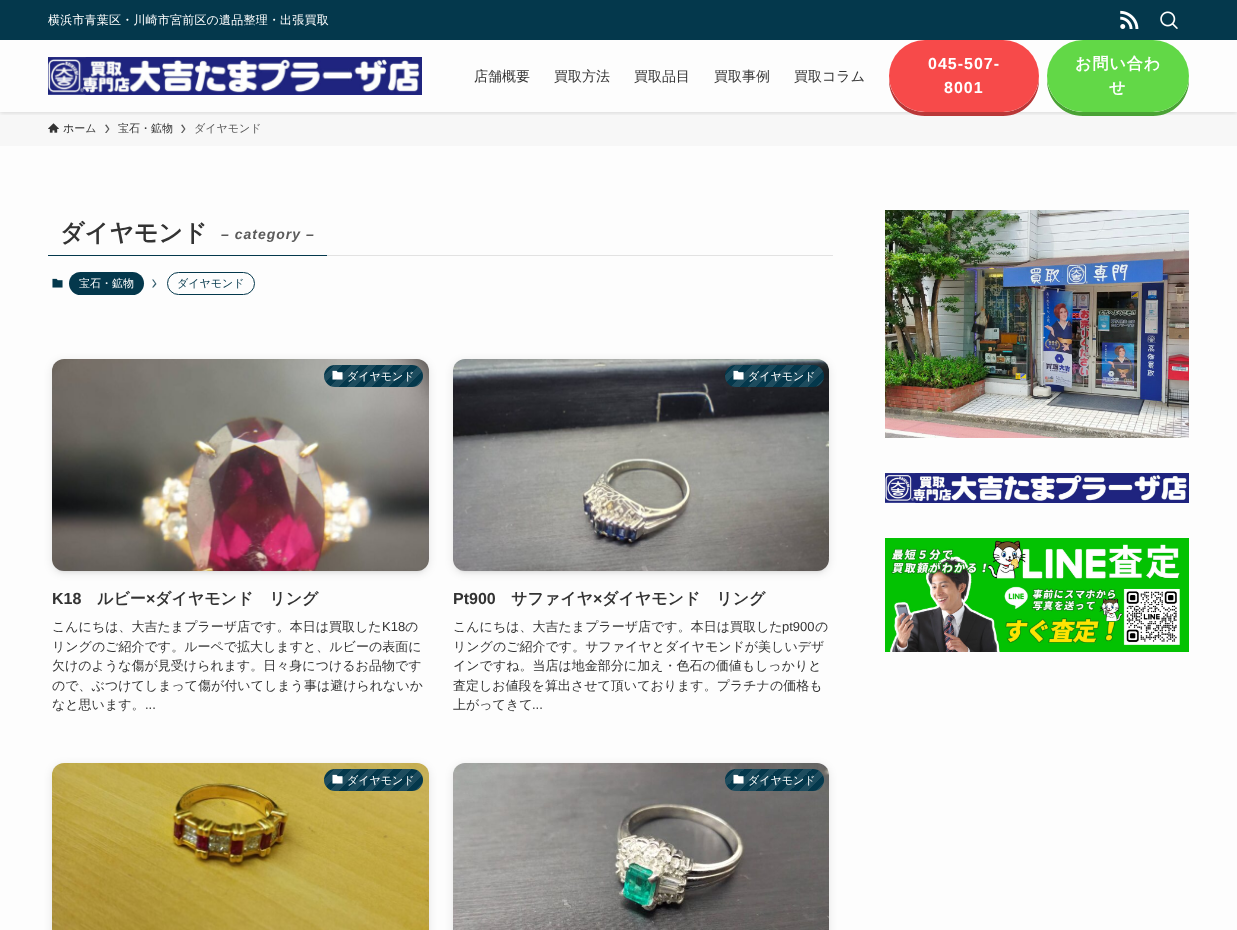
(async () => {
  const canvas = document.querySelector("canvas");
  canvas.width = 1237;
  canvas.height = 930;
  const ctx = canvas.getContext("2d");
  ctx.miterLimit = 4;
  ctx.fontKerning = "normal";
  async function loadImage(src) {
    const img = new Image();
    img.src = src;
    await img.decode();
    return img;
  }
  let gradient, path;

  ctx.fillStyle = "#fdfdfd";
  ctx.fillRect(0, 0, 1237, 930);
  ctx.fillStyle = "#f7f7f7";
  ctx.fillRect(0, 112, 1237, 34);
  ctx.save();
  ctx.beginPath();
  ctx.rect(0, 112, 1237, 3);
  ctx.clip();
  ctx.fillStyle = "rgba(0, 0, 0, 0.12)";
  ctx.filter = "blur(2px)";
  ctx.beginPath();
  ctx.rect(0, 1, 1237, 112);
  ctx.fill();
  ctx.filter = "none";
  ctx.restore();
  ctx.fillStyle = "#04384c";
  ctx.fillRect(0, 0, 1237, 40);
  ctx.drawImage(await loadImage("img/1.png"), 1120, 10, 19, 19);
  ctx.drawImage(await loadImage("img/2.png"), 1160, 11, 18, 18);
  ctx.drawImage(await loadImage("img/3.png"), 48, 57, 374, 38);
  ctx.fillStyle = "#b93838";
  path = new Path2D("M889 78V80C889 100 905 116 925 116H1003C1023 116 1039 100 1039 80V78C1038 97 1022 112 1003 112H925C906 112 890 97 889 78Z");
  ctx.fill(path);
  ctx.fillStyle = "#f74a4a";
  ctx.beginPath();
  ctx.roundRect(889, 40, 150, 72, 36);
  ctx.fill();
  ctx.fillStyle = "#4aa235";
  path = new Path2D("M1047 78V80C1047 100 1063 116 1083 116H1153C1173 116 1189 100 1189 80V78C1188 97 1172 112 1153 112H1083C1064 112 1048 97 1047 78Z");
  ctx.fill(path);
  ctx.fillStyle = "#62d847";
  ctx.beginPath();
  ctx.roundRect(1047, 40, 142, 72, 36);
  ctx.fill();
  ctx.drawImage(await loadImage("img/4.png"), 48, 123, 11, 10);
  ctx.fillStyle = "#5a5a5a";
  path = new Path2D("M106.5 124.5L105 125L108 129L105 133H106.5L109.5 129Z");
  ctx.fill(path);
  path = new Path2D("M182.5 124.5L181 125L184 129L181 133H182.5L185.5 129Z");
  ctx.fill(path);
  ctx.fillStyle = "#e2e2e2";
  ctx.fillRect(327, 255, 506, 1);
  ctx.fillStyle = "#04384c";
  ctx.fillRect(48, 255, 279, 1);
  ctx.drawImage(await loadImage("img/5.png"), 52, 278, 11, 10);
  ctx.beginPath();
  ctx.roundRect(69, 272, 75, 23, 11.5);
  ctx.fill();
  ctx.fillStyle = "#365f6f";
  path = new Path2D("M153.5 279.5H152L155 283.5L152 287.5H153.5L156.5 284Z");
  ctx.fill(path);
  ctx.beginPath();
  ctx.roundRect(167.5, 272.5, 87, 22, 11);
  ctx.strokeStyle = "#04384c";
  ctx.stroke();
  ctx.fillStyle = "rgba(0, 0, 0, 0.1)";
  ctx.filter = "blur(2px)";
  ctx.beginPath();
  ctx.roundRect(56, 367, 369, 204, 8);
  ctx.fill();
  ctx.filter = "none";
  ctx.filter = "blur(4px)";
  ctx.beginPath();
  ctx.roundRect(52, 361, 377, 212, 12);
  ctx.fill();
  ctx.filter = "none";
  ctx.drawImage(await loadImage("img/6.png"), 52, 359, 377, 212);
  ctx.fillStyle = "#04384c";
  ctx.beginPath();
  ctx.roundRect(324, 365, 99, 22, 11);
  ctx.fill();
  gradient = ctx.createLinearGradient(404, 406, 336, 338);
  gradient.addColorStop(0, "rgba(255, 255, 255, 0.1)");
  gradient.addColorStop(0.06, "rgba(255, 255, 255, 0.1)");
  gradient.addColorStop(0.06, "rgba(255, 255, 255, 0)");
  gradient.addColorStop(0.12, "rgba(255, 255, 255, 0)");
  gradient.addColorStop(0.12, "rgba(255, 255, 255, 0.1)");
  gradient.addColorStop(0.19, "rgba(255, 255, 255, 0.1)");
  gradient.addColorStop(0.19, "rgba(255, 255, 255, 0)");
  gradient.addColorStop(0.25, "rgba(255, 255, 255, 0)");
  gradient.addColorStop(0.25, "rgba(255, 255, 255, 0.1)");
  gradient.addColorStop(0.31, "rgba(255, 255, 255, 0.1)");
  gradient.addColorStop(0.31, "rgba(255, 255, 255, 0)");
  gradient.addColorStop(0.38, "rgba(255, 255, 255, 0)");
  gradient.addColorStop(0.38, "rgba(255, 255, 255, 0.1)");
  gradient.addColorStop(0.44, "rgba(255, 255, 255, 0.1)");
  gradient.addColorStop(0.44, "rgba(255, 255, 255, 0)");
  gradient.addColorStop(0.5, "rgba(255, 255, 255, 0)");
  gradient.addColorStop(0.5, "rgba(255, 255, 255, 0.1)");
  gradient.addColorStop(0.56, "rgba(255, 255, 255, 0.1)");
  gradient.addColorStop(0.56, "rgba(255, 255, 255, 0)");
  gradient.addColorStop(0.62, "rgba(255, 255, 255, 0)");
  gradient.addColorStop(0.62, "rgba(255, 255, 255, 0.1)");
  gradient.addColorStop(0.69, "rgba(255, 255, 255, 0.1)");
  gradient.addColorStop(0.69, "rgba(255, 255, 255, 0)");
  gradient.addColorStop(0.75, "rgba(255, 255, 255, 0)");
  gradient.addColorStop(0.75, "rgba(255, 255, 255, 0.1)");
  gradient.addColorStop(0.81, "rgba(255, 255, 255, 0.1)");
  gradient.addColorStop(0.81, "rgba(255, 255, 255, 0)");
  gradient.addColorStop(0.88, "rgba(255, 255, 255, 0)");
  gradient.addColorStop(0.88, "rgba(255, 255, 255, 0.1)");
  gradient.addColorStop(0.94, "rgba(255, 255, 255, 0.1)");
  gradient.addColorStop(0.94, "rgba(255, 255, 255, 0)");
  gradient.addColorStop(1, "rgba(0, 0, 0, 0)");
  ctx.fillStyle = gradient;
  ctx.beginPath();
  ctx.roundRect(324, 365, 99, 22, 11);
  ctx.fill();
  ctx.drawImage(await loadImage("img/7.png"), 332, 370, 11, 10);
  ctx.fillStyle = "rgba(0, 0, 0, 0.1)";
  ctx.filter = "blur(2px)";
  ctx.beginPath();
  ctx.roundRect(457, 367, 368, 204, 8);
  ctx.fill();
  ctx.filter = "none";
  ctx.filter = "blur(4px)";
  ctx.beginPath();
  ctx.roundRect(453, 361, 376, 212, 12);
  ctx.fill();
  ctx.filter = "none";
  ctx.drawImage(await loadImage("img/8.png"), 453, 359, 376, 212);
  ctx.fillStyle = "#04384c";
  ctx.beginPath();
  ctx.roundRect(725, 365, 99, 22, 11);
  ctx.fill();
  gradient = ctx.createLinearGradient(805, 406, 737, 338);
  gradient.addColorStop(0, "rgba(255, 255, 255, 0.1)");
  gradient.addColorStop(0.06, "rgba(255, 255, 255, 0.1)");
  gradient.addColorStop(0.06, "rgba(255, 255, 255, 0)");
  gradient.addColorStop(0.12, "rgba(255, 255, 255, 0)");
  gradient.addColorStop(0.12, "rgba(255, 255, 255, 0.1)");
  gradient.addColorStop(0.19, "rgba(255, 255, 255, 0.1)");
  gradient.addColorStop(0.19, "rgba(255, 255, 255, 0)");
  gradient.addColorStop(0.25, "rgba(255, 255, 255, 0)");
  gradient.addColorStop(0.25, "rgba(255, 255, 255, 0.1)");
  gradient.addColorStop(0.31, "rgba(255, 255, 255, 0.1)");
  gradient.addColorStop(0.31, "rgba(255, 255, 255, 0)");
  gradient.addColorStop(0.38, "rgba(255, 255, 255, 0)");
  gradient.addColorStop(0.38, "rgba(255, 255, 255, 0.1)");
  gradient.addColorStop(0.44, "rgba(255, 255, 255, 0.1)");
  gradient.addColorStop(0.44, "rgba(255, 255, 255, 0)");
  gradient.addColorStop(0.5, "rgba(255, 255, 255, 0)");
  gradient.addColorStop(0.5, "rgba(255, 255, 255, 0.1)");
  gradient.addColorStop(0.56, "rgba(255, 255, 255, 0.1)");
  gradient.addColorStop(0.56, "rgba(255, 255, 255, 0)");
  gradient.addColorStop(0.62, "rgba(255, 255, 255, 0)");
  gradient.addColorStop(0.62, "rgba(255, 255, 255, 0.1)");
  gradient.addColorStop(0.69, "rgba(255, 255, 255, 0.1)");
  gradient.addColorStop(0.69, "rgba(255, 255, 255, 0)");
  gradient.addColorStop(0.75, "rgba(255, 255, 255, 0)");
  gradient.addColorStop(0.75, "rgba(255, 255, 255, 0.1)");
  gradient.addColorStop(0.81, "rgba(255, 255, 255, 0.1)");
  gradient.addColorStop(0.81, "rgba(255, 255, 255, 0)");
  gradient.addColorStop(0.88, "rgba(255, 255, 255, 0)");
  gradient.addColorStop(0.88, "rgba(255, 255, 255, 0.1)");
  gradient.addColorStop(0.94, "rgba(255, 255, 255, 0.1)");
  gradient.addColorStop(0.94, "rgba(255, 255, 255, 0)");
  gradient.addColorStop(1, "rgba(0, 0, 0, 0)");
  ctx.fillStyle = gradient;
  ctx.beginPath();
  ctx.roundRect(725, 365, 99, 22, 11);
  ctx.fill();
  ctx.drawImage(await loadImage("img/7.png"), 733, 370, 11, 10);
  ctx.fillStyle = "rgba(0, 0, 0, 0.1)";
  ctx.filter = "blur(4px)";
  ctx.beginPath();
  ctx.roundRect(52, 765, 377, 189, 12);
  ctx.fill();
  ctx.filter = "none";
  ctx.drawImage(await loadImage("img/9.png"), 52, 763, 377, 167);
  ctx.fillStyle = "#04384c";
  ctx.beginPath();
  ctx.roundRect(324, 769, 99, 22, 11);
  ctx.fill();
  gradient = ctx.createLinearGradient(404, 810, 336, 742);
  gradient.addColorStop(0, "rgba(255, 255, 255, 0.1)");
  gradient.addColorStop(0.06, "rgba(255, 255, 255, 0.1)");
  gradient.addColorStop(0.06, "rgba(255, 255, 255, 0)");
  gradient.addColorStop(0.12, "rgba(255, 255, 255, 0)");
  gradient.addColorStop(0.12, "rgba(255, 255, 255, 0.1)");
  gradient.addColorStop(0.19, "rgba(255, 255, 255, 0.1)");
  gradient.addColorStop(0.19, "rgba(255, 255, 255, 0)");
  gradient.addColorStop(0.25, "rgba(255, 255, 255, 0)");
  gradient.addColorStop(0.25, "rgba(255, 255, 255, 0.1)");
  gradient.addColorStop(0.31, "rgba(255, 255, 255, 0.1)");
  gradient.addColorStop(0.31, "rgba(255, 255, 255, 0)");
  gradient.addColorStop(0.38, "rgba(255, 255, 255, 0)");
  gradient.addColorStop(0.38, "rgba(255, 255, 255, 0.1)");
  gradient.addColorStop(0.44, "rgba(255, 255, 255, 0.1)");
  gradient.addColorStop(0.44, "rgba(255, 255, 255, 0)");
  gradient.addColorStop(0.5, "rgba(255, 255, 255, 0)");
  gradient.addColorStop(0.5, "rgba(255, 255, 255, 0.1)");
  gradient.addColorStop(0.56, "rgba(255, 255, 255, 0.1)");
  gradient.addColorStop(0.56, "rgba(255, 255, 255, 0)");
  gradient.addColorStop(0.62, "rgba(255, 255, 255, 0)");
  gradient.addColorStop(0.62, "rgba(255, 255, 255, 0.1)");
  gradient.addColorStop(0.69, "rgba(255, 255, 255, 0.1)");
  gradient.addColorStop(0.69, "rgba(255, 255, 255, 0)");
  gradient.addColorStop(0.75, "rgba(255, 255, 255, 0)");
  gradient.addColorStop(0.75, "rgba(255, 255, 255, 0.1)");
  gradient.addColorStop(0.81, "rgba(255, 255, 255, 0.1)");
  gradient.addColorStop(0.81, "rgba(255, 255, 255, 0)");
  gradient.addColorStop(0.88, "rgba(255, 255, 255, 0)");
  gradient.addColorStop(0.88, "rgba(255, 255, 255, 0.1)");
  gradient.addColorStop(0.94, "rgba(255, 255, 255, 0.1)");
  gradient.addColorStop(0.94, "rgba(255, 255, 255, 0)");
  gradient.addColorStop(1, "rgba(0, 0, 0, 0)");
  ctx.fillStyle = gradient;
  ctx.beginPath();
  ctx.roundRect(324, 769, 99, 22, 11);
  ctx.fill();
  ctx.drawImage(await loadImage("img/7.png"), 332, 774, 11, 10);
  ctx.fillStyle = "rgba(0, 0, 0, 0.1)";
  ctx.filter = "blur(4px)";
  ctx.beginPath();
  ctx.roundRect(453, 765, 376, 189, 12);
  ctx.fill();
  ctx.filter = "none";
  ctx.drawImage(await loadImage("img/10.png"), 453, 763, 376, 167);
  ctx.fillStyle = "#04384c";
  ctx.beginPath();
  ctx.roundRect(725, 769, 99, 22, 11);
  ctx.fill();
  gradient = ctx.createLinearGradient(805, 810, 737, 742);
  gradient.addColorStop(0, "rgba(255, 255, 255, 0.1)");
  gradient.addColorStop(0.06, "rgba(255, 255, 255, 0.1)");
  gradient.addColorStop(0.06, "rgba(255, 255, 255, 0)");
  gradient.addColorStop(0.12, "rgba(255, 255, 255, 0)");
  gradient.addColorStop(0.12, "rgba(255, 255, 255, 0.1)");
  gradient.addColorStop(0.19, "rgba(255, 255, 255, 0.1)");
  gradient.addColorStop(0.19, "rgba(255, 255, 255, 0)");
  gradient.addColorStop(0.25, "rgba(255, 255, 255, 0)");
  gradient.addColorStop(0.25, "rgba(255, 255, 255, 0.1)");
  gradient.addColorStop(0.31, "rgba(255, 255, 255, 0.1)");
  gradient.addColorStop(0.31, "rgba(255, 255, 255, 0)");
  gradient.addColorStop(0.38, "rgba(255, 255, 255, 0)");
  gradient.addColorStop(0.38, "rgba(255, 255, 255, 0.1)");
  gradient.addColorStop(0.44, "rgba(255, 255, 255, 0.1)");
  gradient.addColorStop(0.44, "rgba(255, 255, 255, 0)");
  gradient.addColorStop(0.5, "rgba(255, 255, 255, 0)");
  gradient.addColorStop(0.5, "rgba(255, 255, 255, 0.1)");
  gradient.addColorStop(0.56, "rgba(255, 255, 255, 0.1)");
  gradient.addColorStop(0.56, "rgba(255, 255, 255, 0)");
  gradient.addColorStop(0.62, "rgba(255, 255, 255, 0)");
  gradient.addColorStop(0.62, "rgba(255, 255, 255, 0.1)");
  gradient.addColorStop(0.69, "rgba(255, 255, 255, 0.1)");
  gradient.addColorStop(0.69, "rgba(255, 255, 255, 0)");
  gradient.addColorStop(0.75, "rgba(255, 255, 255, 0)");
  gradient.addColorStop(0.75, "rgba(255, 255, 255, 0.1)");
  gradient.addColorStop(0.81, "rgba(255, 255, 255, 0.1)");
  gradient.addColorStop(0.81, "rgba(255, 255, 255, 0)");
  gradient.addColorStop(0.88, "rgba(255, 255, 255, 0)");
  gradient.addColorStop(0.88, "rgba(255, 255, 255, 0.1)");
  gradient.addColorStop(0.94, "rgba(255, 255, 255, 0.1)");
  gradient.addColorStop(0.94, "rgba(255, 255, 255, 0)");
  gradient.addColorStop(1, "rgba(0, 0, 0, 0)");
  ctx.fillStyle = gradient;
  ctx.beginPath();
  ctx.roundRect(725, 769, 99, 22, 11);
  ctx.fill();
  ctx.drawImage(await loadImage("img/7.png"), 733, 774, 11, 10);
  ctx.drawImage(await loadImage("img/11.png"), 885, 210, 304, 228);
  ctx.drawImage(await loadImage("img/12.png"), 885, 473, 304, 30);
  ctx.drawImage(await loadImage("img/13.png"), 885, 538, 304, 114);
  ctx.letterSpacing = "0.2px";
  ctx.font = "500 12px WenQuanYi Zen Hei";
  ctx.fillStyle = "#ffffff";
  ctx.fillText("横浜市青葉区・川崎市宮前区の遺品整理・出張買取", 48, 24);
  ctx.letterSpacing = "0px";
  ctx.font = "500 14px WenQuanYi Zen Hei";
  ctx.fillStyle = "#333333";
  for (const [text, x, y] of [
    ["店舗概要", 474, 81],
    ["買取方法", 554, 81],
    ["買取品目", 634, 81],
    ["買取事例", 714, 81],
    ["買取コラム", 794, 81],
  ]) {
    ctx.fillText(text, x, y);
  }
  ctx.letterSpacing = "1px";
  ctx.font = "bold 16px Liberation Sans";
  ctx.fillStyle = "#ffffff";
  ctx.fillText("045-507-", 928, 69);
  ctx.fillText("8001", 944, 93);
  ctx.font = "bold 16px WenQuanYi Zen Hei";
  ctx.fillText("お問い合わ", 1075, 69);
  ctx.fillText("せ", 1109, 93);
  ctx.letterSpacing = "0px";
  ctx.font = "500 11px WenQuanYi Zen Hei";
  ctx.fillStyle = "#333333";
  ctx.fillText("ホーム", 63, 132);
  ctx.fillText("宝石・鉱物", 118, 132);
  ctx.fillStyle = "#5a5a5a";
  ctx.fillText("ダイヤモンド", 194, 132);
  ctx.font = "bold 24px WenQuanYi Zen Hei";
  ctx.fillStyle = "#333333";
  ctx.fillText("ダイヤモンド", 60, 241);
  ctx.letterSpacing = "1px";
  ctx.font = "italic bold 14px Liberation Sans";
  ctx.fillStyle = "#5a5a5a";
  ctx.fillText("– category –", 221, 239);
  ctx.letterSpacing = "0px";
  ctx.font = "500 11px WenQuanYi Zen Hei";
  ctx.fillStyle = "#ffffff";
  ctx.fillText("宝石・鉱物", 79, 287);
  ctx.fillStyle = "#04384c";
  ctx.fillText("ダイヤモンド", 177, 287);
  ctx.fillStyle = "#ffffff";
  ctx.fillText("ダイヤモンド", 347, 380);
  ctx.font = "bold 16px Liberation Sans";
  ctx.fillStyle = "#333333";
  ctx.fillText("K18", 52, 604);
  ctx.font = "bold 16px WenQuanYi Zen Hei";
  ctx.fillText("ルビー", 97, 604);
  ctx.font = "bold 16px Liberation Sans";
  ctx.fillText("×", 146, 604);
  ctx.font = "bold 16px WenQuanYi Zen Hei";
  ctx.fillText("ダイヤモンド　リング", 155, 604);
  ctx.font = "500 13px WenQuanYi Zen Hei";
  ctx.fillText("こんにちは、大吉たまプラーザ店です。本日は買取した", 52, 631);
  ctx.font = "13px Liberation Sans";
  ctx.fillText("K18", 382, 631);
  ctx.font = "500 13px WenQuanYi Zen Hei";
  for (const [text, x, y] of [
    ["の", 405, 631],
    ["リングのご紹介です。ルーペで拡大しますと、ルビーの表面に", 52, 651],
    ["欠けのような傷が見受けられます。日々身につけるお品物です", 52, 670],
    ["ので、ぶつけてしまって傷が付いてしまう事は避けられないか", 52, 690],
    ["なと思います。", 52, 709],
  ]) {
    ctx.fillText(text, x, y);
  }
  ctx.font = "13px Liberation Sans";
  ctx.fillText("...", 145, 709);
  ctx.font = "500 11px WenQuanYi Zen Hei";
  ctx.fillStyle = "#ffffff";
  ctx.fillText("ダイヤモンド", 748, 380);
  ctx.font = "bold 16px Liberation Sans";
  ctx.fillStyle = "#333333";
  ctx.fillText("Pt900", 453, 604);
  ctx.font = "bold 16px WenQuanYi Zen Hei";
  ctx.fillText("サファイヤ", 511, 604);
  ctx.font = "bold 16px Liberation Sans";
  ctx.fillText("×", 593, 604);
  ctx.font = "bold 16px WenQuanYi Zen Hei";
  ctx.fillText("ダイヤモンド　リング", 602, 604);
  ctx.font = "500 13px WenQuanYi Zen Hei";
  ctx.fillText("こんにちは、大吉たまプラーザ店です。本日は買取した", 453, 631);
  ctx.font = "13px Liberation Sans";
  ctx.fillText("pt900", 782, 631);
  ctx.font = "500 13px WenQuanYi Zen Hei";
  for (const [text, x, y] of [
    ["の", 815, 631],
    ["リングのご紹介です。サファイヤとダイヤモンドが美しいデザ", 453, 651],
    ["インですね。当店は地金部分に加え・色石の価値もしっかりと", 453, 670],
    ["査定しお値段を算出させて頂いております。プラチナの価格も", 453, 690],
    ["上がってきて", 453, 709],
  ]) {
    ctx.fillText(text, x, y);
  }
  ctx.font = "13px Liberation Sans";
  ctx.fillText("...", 532, 709);
  ctx.font = "500 11px WenQuanYi Zen Hei";
  ctx.fillStyle = "#ffffff";
  ctx.fillText("ダイヤモンド", 347, 784);
  ctx.fillText("ダイヤモンド", 748, 784);
})();
